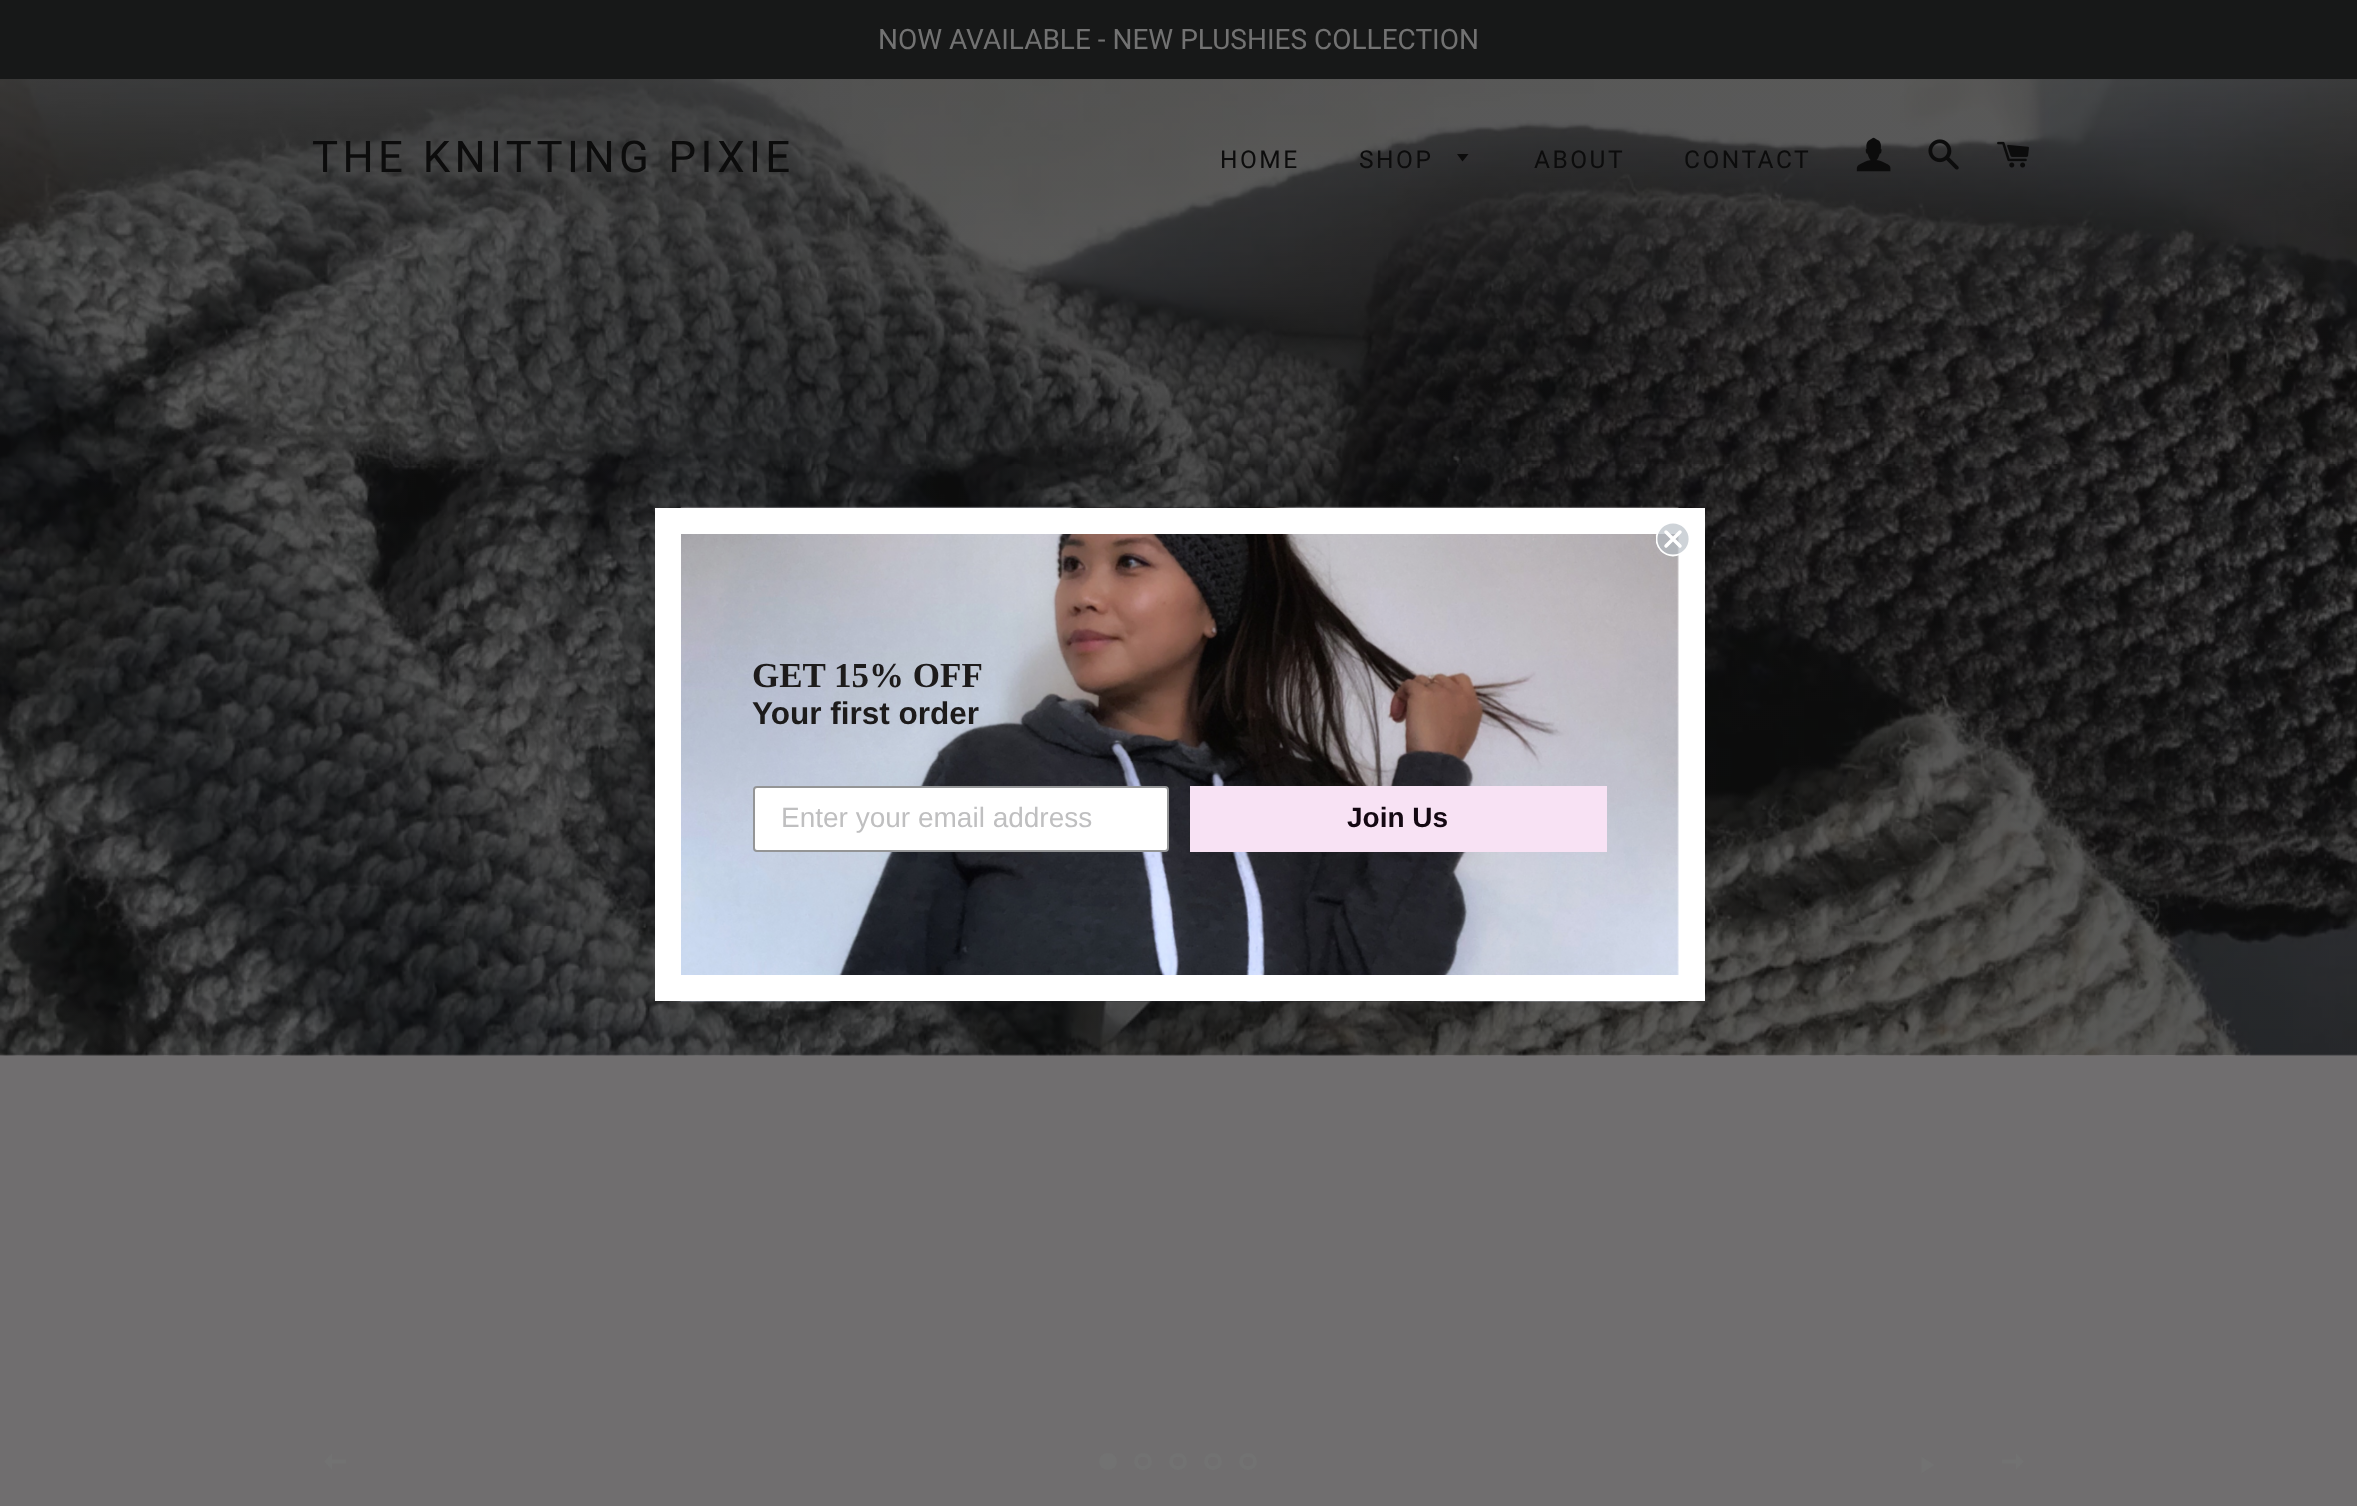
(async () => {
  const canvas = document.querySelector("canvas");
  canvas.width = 2357;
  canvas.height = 1506;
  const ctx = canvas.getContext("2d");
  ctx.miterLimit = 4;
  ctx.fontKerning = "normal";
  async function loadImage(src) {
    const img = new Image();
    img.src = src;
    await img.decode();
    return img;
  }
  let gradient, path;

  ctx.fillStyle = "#706e6f";
  ctx.fillRect(0, 0, 2357, 1506);
  ctx.fillStyle = "#171818";
  ctx.fillRect(0, 0, 2357, 79);
  ctx.drawImage(await loadImage("img/4.png"), 0, 79, 2357, 977);
  gradient = ctx.createLinearGradient(1179, 0, 1179, 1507);
  gradient.addColorStop(0, "rgba(12, 12, 12, 0.25)");
  gradient.addColorStop(0.83, "rgba(12, 12, 12, 0.25)");
  gradient.addColorStop(0.93, "rgba(12, 12, 12, 0.38)");
  gradient.addColorStop(1, "rgba(12, 12, 12, 0.5)");
  ctx.fillStyle = gradient;
  ctx.fillRect(0, 79, 2357, 976);
  ctx.fillStyle = "#0c0c0c";
  path = new Path2D("M1457 154L1462.5 161.5L1468.5 154Z");
  ctx.fill(path);
  ctx.drawImage(await loadImage("img/1.png"), 1856, 137, 35, 35);
  ctx.drawImage(await loadImage("img/2.png"), 1928, 139, 31, 31);
  ctx.drawImage(await loadImage("img/3.png"), 1997, 141, 32, 27);
  ctx.fillStyle = "#727272";
  path = new Path2D("M324 1461.5L332 1470V1463.5H346V1459.5H332V1453Z");
  ctx.fill(path);
  path = new Path2D("M2024 1461.5L2016 1453V1459.5H2002V1463.5H2016V1470Z");
  ctx.fill(path);
  ctx.beginPath();
  ctx.roundRect(1099, 1453, 18, 17, 8.5);
  ctx.fill();
  ctx.beginPath();
  ctx.roundRect(1136, 1455, 14, 13, 6.5);
  ctx.strokeStyle = "#727272";
  ctx.lineWidth = 4;
  ctx.stroke();
  ctx.beginPath();
  ctx.roundRect(1171, 1455, 14, 13, 6.5);
  ctx.stroke();
  ctx.beginPath();
  ctx.roundRect(1206, 1455, 14, 13, 6.5);
  ctx.stroke();
  ctx.beginPath();
  ctx.roundRect(1241, 1455, 14, 13, 6.5);
  ctx.stroke();
  path = new Path2D("M1921.5 1473.5L1934.5 1465L1921.5 1456.5Z");
  ctx.fill(path);
  ctx.fillStyle = "#ffffff";
  ctx.fillRect(1677, 535, 2, 440);
  ctx.drawImage(await loadImage("img/5.png"), 680, 506, 999, 496);
  ctx.strokeStyle = "#ffffff";
  ctx.lineWidth = 26;
  ctx.strokeRect(668, 521, 1024, 467);
  ctx.fillStyle = "rgba(180, 187, 195, 0.65)";
  ctx.beginPath();
  ctx.arc(1673, 539, 16.5, 0, Math.PI * 2);
  ctx.fill();
  ctx.save();
  ctx.beginPath();
  ctx.rect(1656, 522, 35, 35);
  ctx.clip();
  ctx.beginPath();
  ctx.arc(1673, 539, 16.5, 0, Math.PI * 2);
  ctx.lineWidth = 1.8;
  ctx.stroke();
  ctx.restore();
  path = new Path2D("M1666 532L1680 546M1666 546L1680 532Z");
  ctx.lineWidth = 3.5;
  ctx.lineCap = "round";
  ctx.lineJoin = "round";
  ctx.stroke(path);
  ctx.fillStyle = "#ffffff";
  ctx.beginPath();
  ctx.roundRect(754, 787, 414, 64, 3);
  ctx.fill();
  ctx.strokeStyle = "#949596";
  ctx.lineWidth = 2;
  ctx.lineJoin = "miter";
  ctx.stroke();
  ctx.fillStyle = "#f8e2f4";
  ctx.fillRect(1190, 786, 417, 66);
  ctx.font = "28px Roboto";
  ctx.fillStyle = "#727272";
  ctx.fillText("NOW AVAILABLE - NEW PLUSHIES COLLECTION", 878, 49);
  ctx.letterSpacing = "4.4px";
  ctx.font = "43.75px Roboto";
  ctx.fillStyle = "#0c0c0c";
  ctx.fillText("THE KNITTING PIXIE", 312, 172);
  ctx.letterSpacing = "2.5px";
  ctx.font = "24.5px Roboto";
  for (const [text, x, y] of [
    ["HOME", 1220, 168],
    ["SHOP", 1359, 168],
    ["ABOUT", 1534, 168],
    ["CONTACT", 1684, 168],
  ]) {
    ctx.fillText(text, x, y);
  }
  ctx.letterSpacing = "0px";
  ctx.font = "bold 35px Liberation Serif";
  ctx.fillStyle = "#1d1b1b";
  ctx.fillText("GET 15% OFF", 752, 687);
  ctx.font = "bold 31.5px Liberation Sans";
  ctx.fillText("Your first order", 752, 724);
  ctx.font = "28px Liberation Sans";
  ctx.fillStyle = "#bfbfc0";
  ctx.fillText("Enter your email address", 781, 827);
  ctx.font = "bold 28px Liberation Sans";
  ctx.fillStyle = "#140812";
  ctx.fillText("Join Us", 1347, 827);
})();
